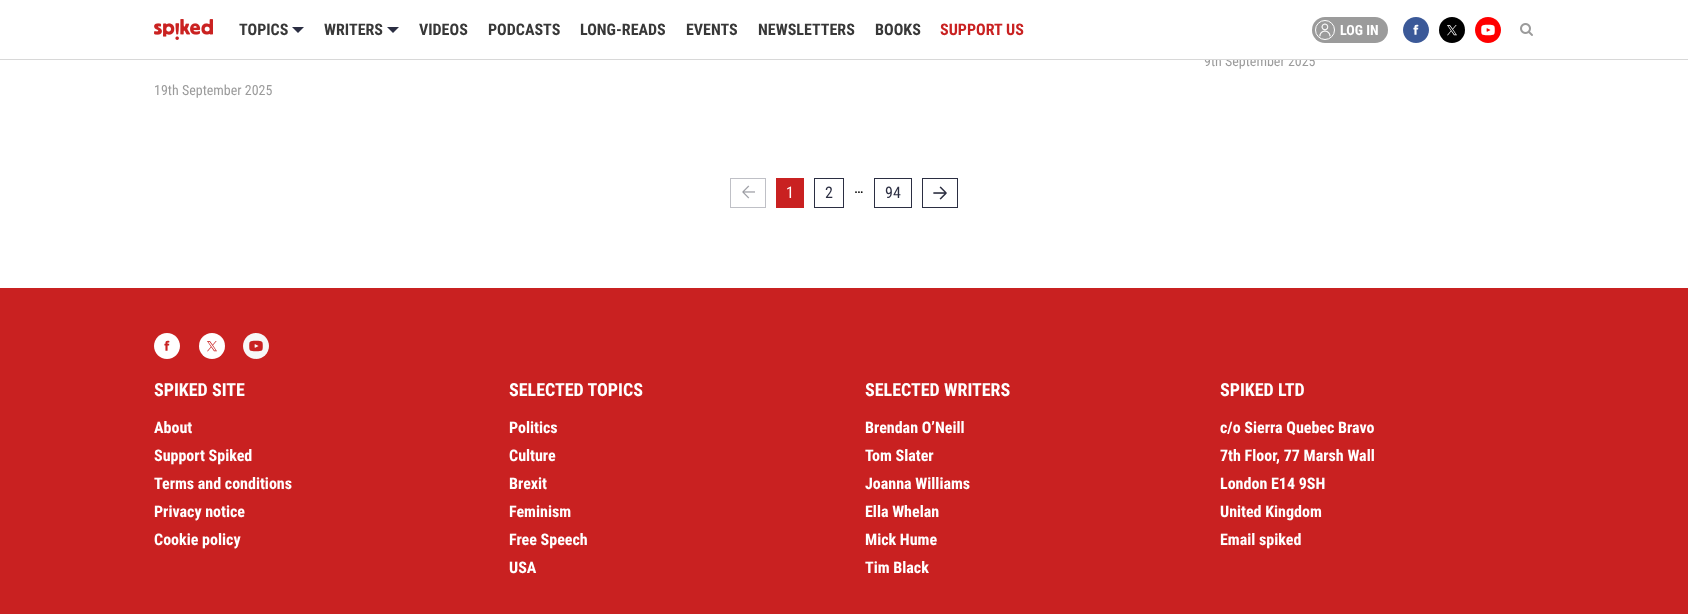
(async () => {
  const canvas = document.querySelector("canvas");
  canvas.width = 1688;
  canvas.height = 614;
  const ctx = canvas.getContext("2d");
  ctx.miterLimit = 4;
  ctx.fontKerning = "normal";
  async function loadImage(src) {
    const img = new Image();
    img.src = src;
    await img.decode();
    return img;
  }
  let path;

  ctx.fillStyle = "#ffffff";
  ctx.fillRect(0, 0, 1688, 614);
  ctx.drawImage(await loadImage("img/1.png"), 154, 19, 59, 21);
  ctx.fillStyle = "#2b2e42";
  path = new Path2D("M292 27H304L298 33Z");
  ctx.fill(path);
  path = new Path2D("M387 27H399L393 33Z");
  ctx.fill(path);
  ctx.fillStyle = "#9b9b9b";
  ctx.beginPath();
  ctx.roundRect(1312, 17, 76, 26, 13);
  ctx.fill();
  ctx.drawImage(await loadImage("img/2.png"), 1319, 23, 12, 14);
  ctx.beginPath();
  ctx.arc(1325, 30, 9.5, 0, Math.PI * 2);
  ctx.strokeStyle = "#ffffff";
  ctx.stroke();
  ctx.drawImage(await loadImage("img/3.png"), 1403, 17, 26, 26);
  ctx.drawImage(await loadImage("img/4.png"), 1439, 17, 26, 26);
  ctx.drawImage(await loadImage("img/5.png"), 1475, 17, 26, 26);
  ctx.drawImage(await loadImage("img/6.png"), 1520, 23, 13, 13);
  ctx.strokeStyle = "#bfc0c6";
  ctx.strokeRect(730.5, 178.5, 35, 29);
  ctx.drawImage(await loadImage("img/7.png"), 742, 185, 13, 14);
  ctx.fillStyle = "#c92121";
  ctx.fillRect(776, 178, 28, 30);
  ctx.strokeStyle = "#2b2e42";
  ctx.strokeRect(814.5, 178.5, 29, 29);
  ctx.strokeRect(874.5, 178.5, 37, 29);
  ctx.strokeRect(922.5, 178.5, 35, 29);
  ctx.drawImage(await loadImage("img/8.png"), 933, 186, 14, 14);
  ctx.fillRect(0, 288, 1688, 326);
  ctx.drawImage(await loadImage("img/9.png"), 154, 333, 26, 26);
  ctx.drawImage(await loadImage("img/10.png"), 199, 333, 26, 26);
  ctx.drawImage(await loadImage("img/11.png"), 243, 333, 26, 26);
  ctx.font = "bold 16px Roboto Condensed";
  ctx.fillStyle = "#383838";
  for (const [text, x, y] of [
    ["TOPICS", 239, 35],
    ["WRITERS", 324, 35],
    ["VIDEOS", 419, 35],
    ["PODCASTS", 488, 35],
    ["LONG-READS", 580, 35],
    ["EVENTS", 686, 35],
    ["NEWSLETTERS", 758, 35],
    ["BOOKS", 875, 35],
  ]) {
    ctx.fillText(text, x, y);
  }
  ctx.fillStyle = "#c92121";
  ctx.fillText("SUPPORT US", 940, 35);
  ctx.font = "bold 14px Roboto Condensed";
  ctx.fillStyle = "#ffffff";
  ctx.fillText("LOG IN", 1340, 35);
  ctx.font = "14px Roboto Condensed";
  ctx.fillStyle = "#9b9b9b";
  ctx.fillText("9th September 2025", 1204, 66);
  ctx.fillStyle = "#d8d8d8";
  ctx.fillRect(0, 59, 1688, 1);
  ctx.fillStyle = "#ffffff";
  ctx.fillRect(1204, 55, 111, 4);
  ctx.fillStyle = "#9b9b9b";
  ctx.fillText("19th September 2025", 154, 95);
  ctx.font = "16px Roboto Condensed";
  ctx.fillStyle = "#ffffff";
  ctx.fillText("1", 786, 198);
  ctx.fillStyle = "#2b2e42";
  ctx.fillText("2", 825, 198);
  ctx.fillStyle = "#000000";
  ctx.fillText("…", 854, 193);
  ctx.fillStyle = "#2b2e42";
  ctx.fillText("94", 885, 198);
  ctx.font = "bold 18px Roboto Condensed";
  ctx.fillStyle = "#ffffff";
  ctx.fillText("SPIKED SITE", 154, 396);
  ctx.font = "bold 16px Roboto Condensed";
  for (const [text, x, y] of [
    ["About", 154, 433],
    ["Support Spiked", 154, 461],
    ["Terms and conditions", 154, 489],
    ["Privacy notice", 154, 517],
    ["Cookie policy", 154, 545],
  ]) {
    ctx.fillText(text, x, y);
  }
  ctx.font = "bold 18px Roboto Condensed";
  ctx.fillText("SELECTED TOPICS", 509, 396);
  ctx.font = "bold 16px Roboto Condensed";
  for (const [text, x, y] of [
    ["Politics", 509, 433],
    ["Culture", 509, 461],
    ["Brexit", 509, 489],
    ["Feminism", 509, 517],
    ["Free Speech", 509, 545],
    ["USA", 509, 573],
  ]) {
    ctx.fillText(text, x, y);
  }
  ctx.font = "bold 18px Roboto Condensed";
  ctx.fillText("SELECTED WRITERS", 865, 396);
  ctx.font = "bold 16px Roboto Condensed";
  for (const [text, x, y] of [
    ["Brendan O’Neill", 865, 433],
    ["Tom Slater", 865, 461],
    ["Joanna Williams", 865, 489],
    ["Ella Whelan", 865, 517],
    ["Mick Hume", 865, 545],
    ["Tim Black", 865, 573],
  ]) {
    ctx.fillText(text, x, y);
  }
  ctx.font = "bold 18px Roboto Condensed";
  ctx.fillText("SPIKED LTD", 1220, 396);
  ctx.font = "bold 16px Roboto Condensed";
  for (const [text, x, y] of [
    ["c/o Sierra Quebec Bravo", 1220, 433],
    ["7th Floor, 77 Marsh Wall", 1220, 461],
    ["London E14 9SH", 1220, 489],
    ["United Kingdom", 1220, 517],
    ["Email spiked", 1220, 545],
  ]) {
    ctx.fillText(text, x, y);
  }
})();
